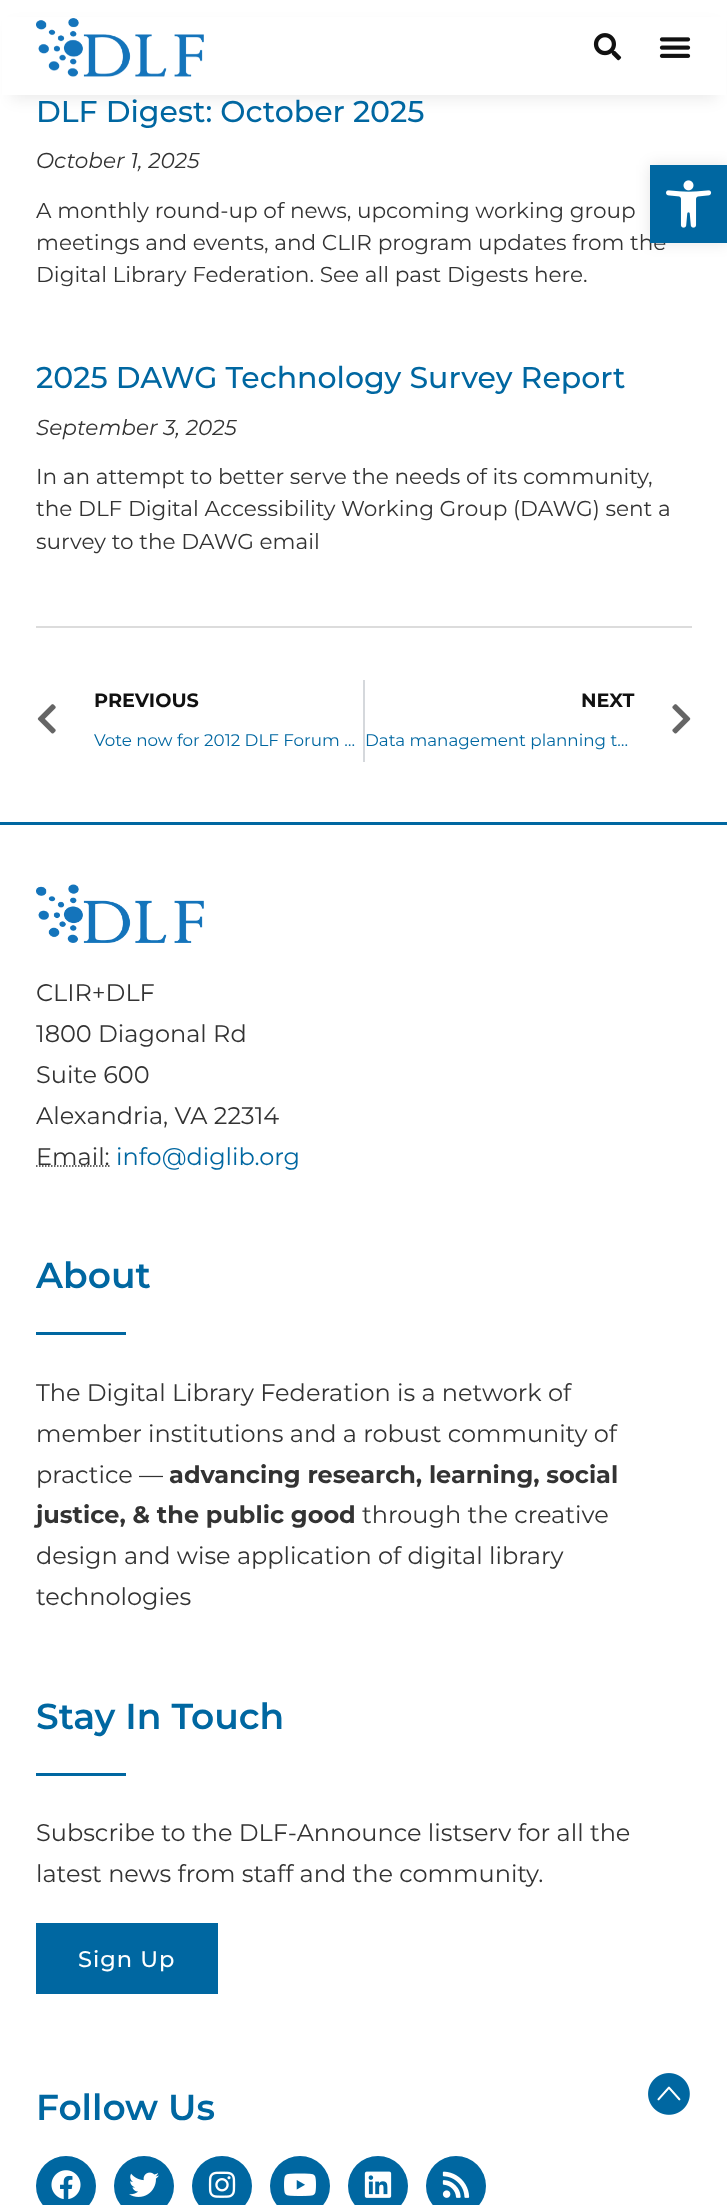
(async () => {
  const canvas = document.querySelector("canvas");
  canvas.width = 727;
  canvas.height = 2205;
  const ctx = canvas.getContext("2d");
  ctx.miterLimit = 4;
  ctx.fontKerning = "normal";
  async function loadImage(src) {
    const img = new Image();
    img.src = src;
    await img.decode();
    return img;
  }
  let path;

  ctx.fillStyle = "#ffffff";
  ctx.fillRect(0, 0, 727, 2205);
  ctx.fillStyle = "rgba(0, 0, 0, 0.08)";
  ctx.filter = "blur(7.5px)";
  ctx.beginPath();
  ctx.rect(11, 26, 706, 73);
  ctx.fill();
  ctx.filter = "none";
  ctx.fillStyle = "#ffffff";
  ctx.fillRect(2, 17, 724, 78);
  ctx.drawImage(await loadImage("img/1.png"), 36, 18, 168, 59);
  ctx.drawImage(await loadImage("img/2.png"), 593, 33, 29, 28);
  ctx.drawImage(await loadImage("img/3.png"), 659, 37, 32, 21);
  ctx.fillStyle = "#dcdcdc";
  ctx.fillRect(36, 626, 656, 2);
  ctx.drawImage(await loadImage("img/4.png"), 37, 704, 19, 30);
  ctx.fillStyle = "#d5d8dc";
  ctx.fillRect(363, 680, 2, 82);
  ctx.drawImage(await loadImage("img/5.png"), 672, 704, 19, 30);
  ctx.fillStyle = "rgba(0, 0, 0, 0.1)";
  ctx.filter = "blur(7.5px)";
  ctx.beginPath();
  ctx.rect(650, 165, 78, 78);
  ctx.fill();
  ctx.filter = "none";
  ctx.fillStyle = "#0067a1";
  ctx.fillRect(0, 822, 727, 3);
  ctx.drawImage(await loadImage("img/7.png"), 36, 884, 168, 59);
  path = new Path2D("M36 1166H109.5");
  ctx.strokeStyle = "#333333";
  ctx.lineWidth = 1.5;
  ctx.setLineDash([1.5, 1.5]);
  ctx.stroke(path);
  for (const [x, y, w, h, color] of [
    [36, 1332, 90, 3, "#0067a1"],
    [36, 1773, 90, 3, "#0067a1"],
    [36, 1923, 182, 71, "#0067a1"],
  ]) {
    ctx.fillStyle = color;
    ctx.fillRect(x, y, w, h);
  }
  ctx.beginPath();
  ctx.arc(66, 2186, 30, 0, Math.PI * 2);
  ctx.fill();
  ctx.drawImage(await loadImage("img/8.png"), 51, 2170, 30, 30);
  ctx.beginPath();
  ctx.arc(144, 2186, 30, 0, Math.PI * 2);
  ctx.fill();
  ctx.drawImage(await loadImage("img/9.png"), 129, 2172, 30, 25);
  ctx.beginPath();
  ctx.arc(222, 2186, 30, 0, Math.PI * 2);
  ctx.fill();
  ctx.drawImage(await loadImage("img/10.png"), 208, 2171, 28, 27);
  ctx.beginPath();
  ctx.arc(300, 2186, 30, 0, Math.PI * 2);
  ctx.fill();
  ctx.drawImage(await loadImage("img/11.png"), 284, 2173, 32, 23);
  ctx.beginPath();
  ctx.arc(378, 2186, 30, 0, Math.PI * 2);
  ctx.fill();
  ctx.drawImage(await loadImage("img/12.png"), 364, 2171, 28, 27);
  ctx.beginPath();
  ctx.arc(456, 2186, 30, 0, Math.PI * 2);
  ctx.fill();
  ctx.drawImage(await loadImage("img/13.png"), 442, 2171, 28, 27);
  ctx.drawImage(await loadImage("img/14.png"), 648, 2073, 42, 42);
  ctx.font = "500 30px Montserrat";
  ctx.fillText("DLF Digest: October 2025", 36, 122);
  ctx.font = "italic 21.6px Montserrat";
  ctx.fillStyle = "#333333";
  ctx.fillText("October 1, 2025", 36, 168);
  ctx.font = "21.6px Montserrat";
  for (const [text, x, y] of [
    ["A monthly round-up of news, upcoming working group", 36, 218],
    ["meetings and events, and CLIR program updates from the", 36, 250],
    ["Digital Library Federation. See all past Digests here.", 36, 282],
  ]) {
    ctx.fillText(text, x, y);
  }
  ctx.font = "500 30px Montserrat";
  ctx.fillStyle = "#0067a1";
  ctx.fillText("2025 DAWG Technology Survey Report", 36, 388);
  ctx.font = "italic 21.6px Montserrat";
  ctx.fillStyle = "#333333";
  ctx.fillText("September 3, 2025", 36, 435);
  ctx.font = "21.6px Montserrat";
  for (const [text, x, y] of [
    ["In an attempt to better serve the needs of its community,", 36, 484],
    ["the DLF Digital Accessibility Working Group (DAWG) sent a", 36, 516],
    ["survey to the DAWG email", 36, 549],
  ]) {
    ctx.fillText(text, x, y);
  }
  ctx.font = "bold 19.25px Montserrat";
  ctx.fillStyle = "#111111";
  ctx.fillText("PREVIOUS", 94, 707);
  ctx.font = "16.75px Montserrat";
  ctx.fillStyle = "#0067a1";
  ctx.fillText("Vote now for 2012 DLF Forum …", 94, 746);
  ctx.font = "bold 19.25px Montserrat";
  ctx.fillStyle = "#111111";
  ctx.fillText("NEXT", 581, 707);
  ctx.font = "16.75px Montserrat";
  ctx.fillStyle = "#0067a1";
  ctx.fillText("Data management planning t…", 365, 746);
  ctx.fillRect(650, 165, 77, 78);
  ctx.drawImage(await loadImage("img/6.png"), 666, 180, 46, 48);
  ctx.font = "24px Montserrat";
  ctx.fillStyle = "#333333";
  for (const [text, x, y] of [
    ["CLIR+DLF", 36, 1001],
    ["1800 Diagonal Rd", 36, 1042],
    ["Suite 600", 36, 1083],
    ["Alexandria, VA 22314", 36, 1124],
    ["Email:", 36, 1165],
  ]) {
    ctx.fillText(text, x, y);
  }
  ctx.fillStyle = "#0067a1";
  ctx.fillText("info@diglib.org", 116, 1165);
  ctx.font = "600 36px Montserrat";
  ctx.fillText("About", 36, 1288);
  ctx.font = "24px Montserrat";
  ctx.fillStyle = "#333333";
  for (const [text, x, y] of [
    ["The Digital Library Federation is a network of", 36, 1401],
    ["member institutions and a robust community of", 36, 1442],
    ["practice —", 36, 1483],
  ]) {
    ctx.fillText(text, x, y);
  }
  ctx.font = "bold 24px Montserrat";
  ctx.fillText("advancing research, learning, social", 169, 1483);
  ctx.fillText("justice, & the public good", 36, 1523);
  ctx.font = "24px Montserrat";
  for (const [text, x, y] of [
    ["through the creative", 362, 1523],
    ["design and wise application of digital library", 36, 1564],
    ["technologies", 36, 1605],
  ]) {
    ctx.fillText(text, x, y);
  }
  ctx.font = "600 36px Montserrat";
  ctx.fillStyle = "#0067a1";
  ctx.fillText("Stay In Touch", 36, 1729);
  ctx.font = "24px Montserrat";
  ctx.fillStyle = "#333333";
  ctx.fillText("Subscribe to the DLF-Announce listserv for all the", 36, 1841);
  ctx.fillText("latest news from staff and the community.", 36, 1882);
  ctx.letterSpacing = "1px";
  ctx.font = "500 22.5px Montserrat";
  ctx.fillStyle = "#ffffff";
  ctx.fillText("Sign Up", 78, 1967);
  ctx.letterSpacing = "0px";
  ctx.font = "600 36px Montserrat";
  ctx.fillStyle = "#0067a1";
  ctx.fillText("Follow Us", 36, 2120);
})();
